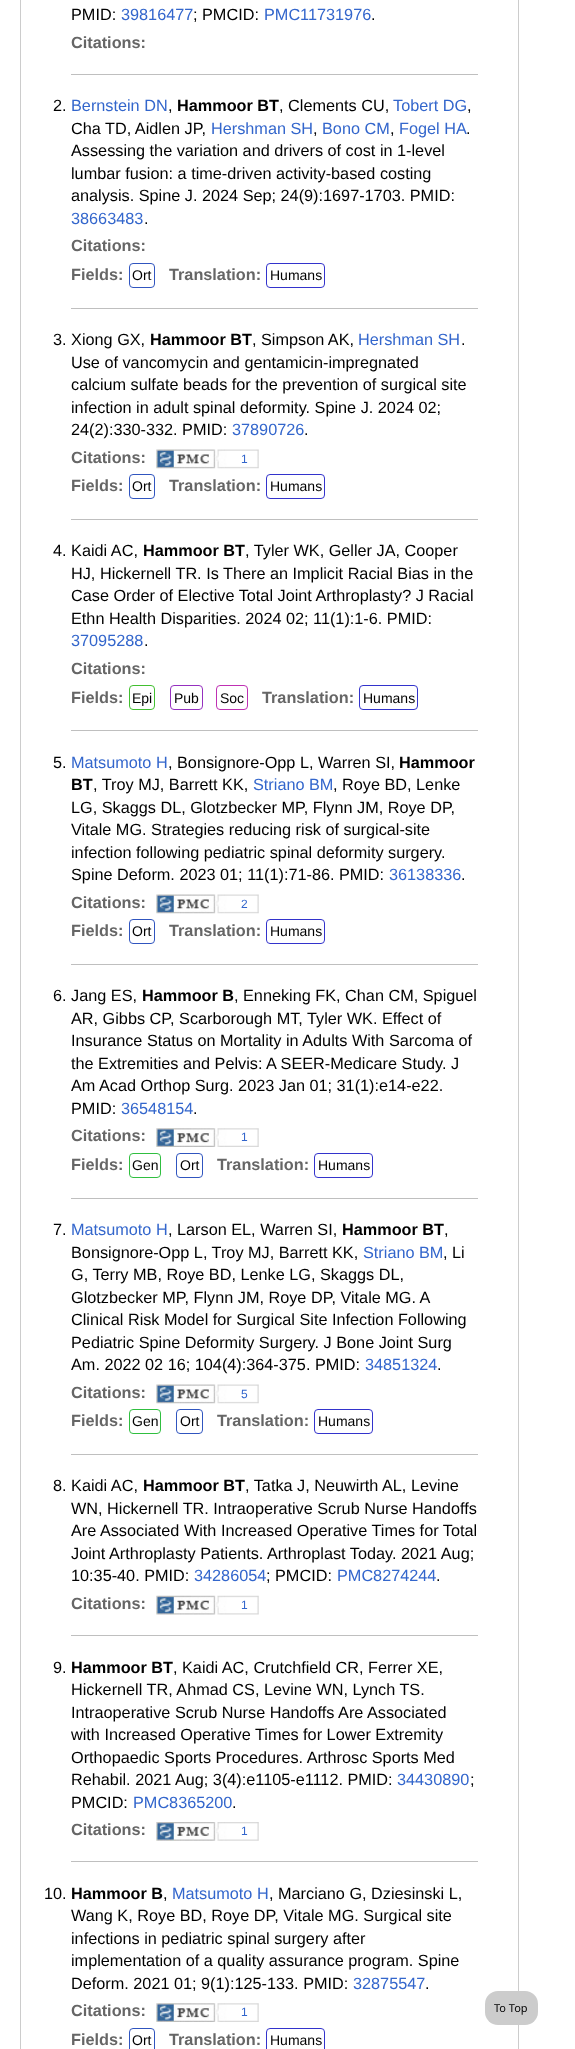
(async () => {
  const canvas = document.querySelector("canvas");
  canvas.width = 575;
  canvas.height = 2049;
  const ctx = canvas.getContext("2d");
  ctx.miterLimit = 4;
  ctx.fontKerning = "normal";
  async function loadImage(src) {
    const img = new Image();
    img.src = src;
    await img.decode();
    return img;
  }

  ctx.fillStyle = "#ffffff";
  ctx.fillRect(0, 0, 575, 2049);
  ctx.strokeStyle = "#cccccc";
  ctx.strokeRect(20.5, -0.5, 498, 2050);
  ctx.fillStyle = "#bfbfbf";
  ctx.fillRect(71, 74, 407, 1);
  ctx.beginPath();
  ctx.roundRect(129.5, 263.5, 25, 24, 3.5);
  ctx.strokeStyle = "#3055bf";
  ctx.stroke();
  ctx.beginPath();
  ctx.roundRect(266.5, 263.5, 58, 24, 3.5);
  ctx.strokeStyle = "#3333cc";
  ctx.stroke();
  ctx.fillRect(71, 308, 407, 1);
  ctx.drawImage(await loadImage("img/1.png"), 156, 449, 103, 20);
  ctx.beginPath();
  ctx.roundRect(129.5, 474.5, 25, 24, 3.5);
  ctx.strokeStyle = "#3055bf";
  ctx.stroke();
  ctx.beginPath();
  ctx.roundRect(266.5, 474.5, 58, 24, 3.5);
  ctx.strokeStyle = "#3333cc";
  ctx.stroke();
  ctx.fillRect(71, 519, 407, 1);
  ctx.beginPath();
  ctx.roundRect(129.5, 685.5, 25, 24, 3.5);
  ctx.strokeStyle = "#42bf30";
  ctx.stroke();
  ctx.beginPath();
  ctx.roundRect(170.5, 685.5, 32, 24, 3.5);
  ctx.strokeStyle = "#9530bf";
  ctx.stroke();
  ctx.beginPath();
  ctx.roundRect(216.5, 685.5, 31, 24, 3.5);
  ctx.strokeStyle = "#bf30b3";
  ctx.stroke();
  ctx.beginPath();
  ctx.roundRect(359.5, 685.5, 58, 24, 3.5);
  ctx.strokeStyle = "#3333cc";
  ctx.stroke();
  ctx.fillRect(71, 730, 407, 1);
  ctx.drawImage(await loadImage("img/1.png"), 156, 894, 103, 20);
  ctx.beginPath();
  ctx.roundRect(129.5, 919.5, 25, 24, 3.5);
  ctx.strokeStyle = "#3055bf";
  ctx.stroke();
  ctx.beginPath();
  ctx.roundRect(266.5, 919.5, 58, 24, 3.5);
  ctx.strokeStyle = "#3333cc";
  ctx.stroke();
  ctx.fillRect(71, 964, 407, 1);
  ctx.drawImage(await loadImage("img/2.png"), 156, 1128, 103, 19);
  ctx.beginPath();
  ctx.roundRect(129.5, 1153.5, 31, 24, 3.5);
  ctx.strokeStyle = "#30bf40";
  ctx.stroke();
  ctx.beginPath();
  ctx.roundRect(176.5, 1153.5, 26, 24, 3.5);
  ctx.strokeStyle = "#3055bf";
  ctx.stroke();
  ctx.beginPath();
  ctx.roundRect(314.5, 1153.5, 58, 24, 3.5);
  ctx.strokeStyle = "#3333cc";
  ctx.stroke();
  ctx.fillRect(71, 1198, 407, 1);
  ctx.drawImage(await loadImage("img/1.png"), 156, 1384, 103, 20);
  ctx.beginPath();
  ctx.roundRect(129.5, 1409.5, 31, 24, 3.5);
  ctx.strokeStyle = "#30bf40";
  ctx.stroke();
  ctx.beginPath();
  ctx.roundRect(176.5, 1409.5, 26, 24, 3.5);
  ctx.strokeStyle = "#3055bf";
  ctx.stroke();
  ctx.beginPath();
  ctx.roundRect(314.5, 1409.5, 58, 24, 3.5);
  ctx.strokeStyle = "#3333cc";
  ctx.stroke();
  ctx.fillRect(71, 1454, 407, 1);
  ctx.drawImage(await loadImage("img/3.png"), 156, 1595, 103, 20);
  ctx.fillRect(71, 1635, 407, 1);
  ctx.drawImage(await loadImage("img/4.png"), 156, 1822, 103, 19);
  ctx.fillRect(71, 1861, 407, 1);
  ctx.drawImage(await loadImage("img/2.png"), 156, 2003, 103, 19);
  ctx.beginPath();
  ctx.roundRect(129.5, 2028.5, 25, 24, 3.5);
  ctx.strokeStyle = "#3055bf";
  ctx.stroke();
  ctx.beginPath();
  ctx.roundRect(266.5, 2028.5, 58, 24, 3.5);
  ctx.strokeStyle = "#3333cc";
  ctx.stroke();
  ctx.fillStyle = "#cccccc";
  ctx.beginPath();
  ctx.roundRect(485, 1991, 53, 34, 13);
  ctx.fill();
  ctx.font = "16.25px Liberation Sans";
  ctx.fillStyle = "#000000";
  ctx.fillText("PMID:", 71, 20);
  ctx.fillStyle = "#3366cc";
  ctx.fillText("39816477", 121, 20);
  ctx.fillStyle = "#000000";
  ctx.fillText("; PMCID:", 193, 20);
  ctx.fillStyle = "#3366cc";
  ctx.fillText("PMC11731976", 264, 20);
  ctx.fillStyle = "#000000";
  ctx.fillText(".", 371, 20);
  ctx.font = "bold 16.25px Liberation Sans";
  ctx.fillStyle = "#666666";
  ctx.fillText("Citations:", 71, 48);
  ctx.font = "16.25px Liberation Sans";
  ctx.fillStyle = "#000000";
  ctx.fillText("2.", 53, 111);
  ctx.fillStyle = "#3366cc";
  ctx.fillText("Bernstein DN", 71, 111);
  ctx.fillStyle = "#000000";
  ctx.fillText(",", 168, 111);
  ctx.font = "bold 16.25px Liberation Sans";
  ctx.fillText("Hammoor BT", 177, 111);
  ctx.font = "16.25px Liberation Sans";
  ctx.fillText(", Clements CU,", 279, 111);
  ctx.fillStyle = "#3366cc";
  ctx.fillText("Tobert DG", 393, 111);
  ctx.fillStyle = "#000000";
  ctx.fillText(",", 467, 111);
  ctx.fillText("Cha TD, Aidlen JP,", 71, 134);
  ctx.fillStyle = "#3366cc";
  ctx.fillText("Hershman SH", 211, 134);
  ctx.fillStyle = "#000000";
  ctx.fillText(",", 313, 134);
  ctx.fillStyle = "#3366cc";
  ctx.fillText("Bono CM", 322, 134);
  ctx.fillStyle = "#000000";
  ctx.fillText(",", 390, 134);
  ctx.fillStyle = "#3366cc";
  ctx.fillText("Fogel HA", 399, 134);
  ctx.fillStyle = "#000000";
  for (const [text, x, y] of [
    [".", 466, 134],
    ["Assessing the variation and drivers of cost in 1-level", 71, 156],
    ["lumbar fusion: a time-driven activity-based costing", 71, 179],
    ["analysis. Spine J. 2024 Sep; 24(9):1697-1703. PMID:", 71, 201],
  ]) {
    ctx.fillText(text, x, y);
  }
  ctx.fillStyle = "#3366cc";
  ctx.fillText("38663483", 71, 224);
  ctx.fillStyle = "#000000";
  ctx.fillText(".", 144, 224);
  ctx.font = "bold 16.25px Liberation Sans";
  ctx.fillStyle = "#666666";
  ctx.fillText("Citations:", 71, 251);
  ctx.fillText("Fields:", 71, 280);
  ctx.font = "14px Liberation Sans";
  ctx.fillStyle = "#000000";
  ctx.fillText("Ort", 132, 280);
  ctx.font = "bold 16.25px Liberation Sans";
  ctx.fillStyle = "#666666";
  ctx.fillText("Translation:", 169, 280);
  ctx.font = "14px Liberation Sans";
  ctx.fillStyle = "#000000";
  ctx.fillText("Humans", 270, 280);
  ctx.font = "16.25px Liberation Sans";
  ctx.fillText("3. Xiong GX,", 53, 345);
  ctx.font = "bold 16.25px Liberation Sans";
  ctx.fillText("Hammoor BT", 150, 345);
  ctx.font = "16.25px Liberation Sans";
  ctx.fillText(", Simpson AK,", 252, 345);
  ctx.fillStyle = "#3366cc";
  ctx.fillText("Hershman SH", 358, 345);
  ctx.fillStyle = "#000000";
  for (const [text, x, y] of [
    [".", 461, 345],
    ["Use of vancomycin and gentamicin-impregnated", 71, 368],
    ["calcium sulfate beads for the prevention of surgical site", 71, 390],
    ["infection in adult spinal deformity. Spine J. 2024 02;", 71, 413],
    ["24(2):330-332. PMID:", 71, 435],
  ]) {
    ctx.fillText(text, x, y);
  }
  ctx.fillStyle = "#3366cc";
  ctx.fillText("37890726", 232, 435);
  ctx.fillStyle = "#000000";
  ctx.fillText(".", 304, 435);
  ctx.font = "bold 16.25px Liberation Sans";
  ctx.fillStyle = "#666666";
  ctx.fillText("Citations:", 71, 463);
  ctx.font = "12px Liberation Sans";
  ctx.fillStyle = "#3366cc";
  ctx.fillText("1", 241, 463);
  ctx.font = "bold 16.25px Liberation Sans";
  ctx.fillStyle = "#666666";
  ctx.fillText("Fields:", 71, 491);
  ctx.font = "14px Liberation Sans";
  ctx.fillStyle = "#000000";
  ctx.fillText("Ort", 132, 491);
  ctx.font = "bold 16.25px Liberation Sans";
  ctx.fillStyle = "#666666";
  ctx.fillText("Translation:", 169, 491);
  ctx.font = "14px Liberation Sans";
  ctx.fillStyle = "#000000";
  ctx.fillText("Humans", 270, 491);
  ctx.font = "16.25px Liberation Sans";
  ctx.fillText("4. Kaidi AC,", 53, 556);
  ctx.font = "bold 16.25px Liberation Sans";
  ctx.fillText("Hammoor BT", 143, 556);
  ctx.font = "16.25px Liberation Sans";
  for (const [text, x, y] of [
    [", Tyler WK, Geller JA, Cooper", 245, 556],
    ["HJ, Hickernell TR. Is There an Implicit Racial Bias in the", 71, 579],
    ["Case Order of Elective Total Joint Arthroplasty? J Racial", 71, 601],
    ["Ethn Health Disparities. 2024 02; 11(1):1-6. PMID:", 71, 624],
  ]) {
    ctx.fillText(text, x, y);
  }
  ctx.fillStyle = "#3366cc";
  ctx.fillText("37095288", 71, 646);
  ctx.fillStyle = "#000000";
  ctx.fillText(".", 144, 646);
  ctx.font = "bold 16.25px Liberation Sans";
  ctx.fillStyle = "#666666";
  ctx.fillText("Citations:", 71, 674);
  ctx.fillText("Fields:", 71, 703);
  ctx.font = "14px Liberation Sans";
  ctx.fillStyle = "#000000";
  for (const [text, x, y] of [
    ["Epi", 132, 703],
    ["Pub", 174, 703],
    ["Soc", 220, 703],
  ]) {
    ctx.fillText(text, x, y);
  }
  ctx.font = "bold 16.25px Liberation Sans";
  ctx.fillStyle = "#666666";
  ctx.fillText("Translation:", 262, 703);
  ctx.font = "14px Liberation Sans";
  ctx.fillStyle = "#000000";
  ctx.fillText("Humans", 363, 703);
  ctx.font = "16.25px Liberation Sans";
  ctx.fillText("5.", 53, 768);
  ctx.fillStyle = "#3366cc";
  ctx.fillText("Matsumoto H", 71, 768);
  ctx.fillStyle = "#000000";
  ctx.fillText(", Bonsignore-Opp L, Warren SI,", 168, 768);
  ctx.font = "bold 16.25px Liberation Sans";
  ctx.fillText("Hammoor", 399, 768);
  ctx.fillText("BT", 71, 790);
  ctx.font = "16.25px Liberation Sans";
  ctx.fillText(", Troy MJ, Barrett KK,", 93, 790);
  ctx.fillStyle = "#3366cc";
  ctx.fillText("Striano BM", 253, 790);
  ctx.fillStyle = "#000000";
  for (const [text, x, y] of [
    [", Roye BD, Lenke", 333, 790],
    ["LG, Skaggs DL, Glotzbecker MP, Flynn JM, Roye DP,", 71, 813],
    ["Vitale MG. Strategies reducing risk of surgical-site", 71, 835],
    ["infection following pediatric spinal deformity surgery.", 71, 858],
    ["Spine Deform. 2023 01; 11(1):71-86. PMID:", 71, 880],
  ]) {
    ctx.fillText(text, x, y);
  }
  ctx.fillStyle = "#3366cc";
  ctx.fillText("36138336", 389, 880);
  ctx.fillStyle = "#000000";
  ctx.fillText(".", 461, 880);
  ctx.font = "bold 16.25px Liberation Sans";
  ctx.fillStyle = "#666666";
  ctx.fillText("Citations:", 71, 908);
  ctx.font = "12px Liberation Sans";
  ctx.fillStyle = "#3366cc";
  ctx.fillText("2", 241, 908);
  ctx.font = "bold 16.25px Liberation Sans";
  ctx.fillStyle = "#666666";
  ctx.fillText("Fields:", 71, 936);
  ctx.font = "14px Liberation Sans";
  ctx.fillStyle = "#000000";
  ctx.fillText("Ort", 132, 936);
  ctx.font = "bold 16.25px Liberation Sans";
  ctx.fillStyle = "#666666";
  ctx.fillText("Translation:", 169, 936);
  ctx.font = "14px Liberation Sans";
  ctx.fillStyle = "#000000";
  ctx.fillText("Humans", 270, 936);
  ctx.font = "16.25px Liberation Sans";
  ctx.fillText("6. Jang ES,", 53, 1001);
  ctx.font = "bold 16.25px Liberation Sans";
  ctx.fillText("Hammoor B", 142, 1001);
  ctx.font = "16.25px Liberation Sans";
  for (const [text, x, y] of [
    [", Enneking FK, Chan CM, Spiguel", 234, 1001],
    ["AR, Gibbs CP, Scarborough MT, Tyler WK. Effect of", 71, 1024],
    ["Insurance Status on Mortality in Adults With Sarcoma of", 71, 1046],
    ["the Extremities and Pelvis: A SEER-Medicare Study. J", 71, 1069],
    ["Am Acad Orthop Surg. 2023 Jan 01; 31(1):e14-e22.", 71, 1091],
    ["PMID:", 71, 1114],
  ]) {
    ctx.fillText(text, x, y);
  }
  ctx.fillStyle = "#3366cc";
  ctx.fillText("36548154", 121, 1114);
  ctx.fillStyle = "#000000";
  ctx.fillText(".", 193, 1114);
  ctx.font = "bold 16.25px Liberation Sans";
  ctx.fillStyle = "#666666";
  ctx.fillText("Citations:", 71, 1141);
  ctx.font = "12px Liberation Sans";
  ctx.fillStyle = "#3366cc";
  ctx.fillText("1", 241, 1141);
  ctx.font = "bold 16.25px Liberation Sans";
  ctx.fillStyle = "#666666";
  ctx.fillText("Fields:", 71, 1170);
  ctx.font = "14px Liberation Sans";
  ctx.fillStyle = "#000000";
  ctx.fillText("Gen", 132, 1170);
  ctx.fillText("Ort", 180, 1170);
  ctx.font = "bold 16.25px Liberation Sans";
  ctx.fillStyle = "#666666";
  ctx.fillText("Translation:", 217, 1170);
  ctx.font = "14px Liberation Sans";
  ctx.fillStyle = "#000000";
  ctx.fillText("Humans", 318, 1170);
  ctx.font = "16.25px Liberation Sans";
  ctx.fillText("7.", 53, 1235);
  ctx.fillStyle = "#3366cc";
  ctx.fillText("Matsumoto H", 71, 1235);
  ctx.fillStyle = "#000000";
  ctx.fillText(", Larson EL, Warren SI,", 168, 1235);
  ctx.font = "bold 16.25px Liberation Sans";
  ctx.fillText("Hammoor BT", 342, 1235);
  ctx.font = "16.25px Liberation Sans";
  ctx.fillText(",", 444, 1235);
  ctx.fillText("Bonsignore-Opp L, Troy MJ, Barrett KK,", 71, 1258);
  ctx.fillStyle = "#3366cc";
  ctx.fillText("Striano BM", 363, 1258);
  ctx.fillStyle = "#000000";
  for (const [text, x, y] of [
    [", Li", 443, 1258],
    ["G, Terry MB, Roye BD, Lenke LG, Skaggs DL,", 71, 1280],
    ["Glotzbecker MP, Flynn JM, Roye DP, Vitale MG. A", 71, 1303],
    ["Clinical Risk Model for Surgical Site Infection Following", 71, 1325],
    ["Pediatric Spine Deformity Surgery. J Bone Joint Surg", 71, 1348],
    ["Am. 2022 02 16; 104(4):364-375. PMID:", 71, 1370],
  ]) {
    ctx.fillText(text, x, y);
  }
  ctx.fillStyle = "#3366cc";
  ctx.fillText("34851324", 365, 1370);
  ctx.fillStyle = "#000000";
  ctx.fillText(".", 437, 1370);
  ctx.font = "bold 16.25px Liberation Sans";
  ctx.fillStyle = "#666666";
  ctx.fillText("Citations:", 71, 1398);
  ctx.font = "12px Liberation Sans";
  ctx.fillStyle = "#3366cc";
  ctx.fillText("5", 241, 1398);
  ctx.font = "bold 16.25px Liberation Sans";
  ctx.fillStyle = "#666666";
  ctx.fillText("Fields:", 71, 1426);
  ctx.font = "14px Liberation Sans";
  ctx.fillStyle = "#000000";
  ctx.fillText("Gen", 132, 1426);
  ctx.fillText("Ort", 180, 1426);
  ctx.font = "bold 16.25px Liberation Sans";
  ctx.fillStyle = "#666666";
  ctx.fillText("Translation:", 217, 1426);
  ctx.font = "14px Liberation Sans";
  ctx.fillStyle = "#000000";
  ctx.fillText("Humans", 318, 1426);
  ctx.font = "16.25px Liberation Sans";
  ctx.fillText("8. Kaidi AC,", 53, 1491);
  ctx.font = "bold 16.25px Liberation Sans";
  ctx.fillText("Hammoor BT", 143, 1491);
  ctx.font = "16.25px Liberation Sans";
  for (const [text, x, y] of [
    [", Tatka J, Neuwirth AL, Levine", 245, 1491],
    ["WN, Hickernell TR. Intraoperative Scrub Nurse Handoffs", 71, 1514],
    ["Are Associated With Increased Operative Times for Total", 71, 1536],
    ["Joint Arthroplasty Patients. Arthroplast Today. 2021 Aug;", 71, 1559],
    ["10:35-40. PMID:", 71, 1581],
  ]) {
    ctx.fillText(text, x, y);
  }
  ctx.fillStyle = "#3366cc";
  ctx.fillText("34286054", 194, 1581);
  ctx.fillStyle = "#000000";
  ctx.fillText("; PMCID:", 266, 1581);
  ctx.fillStyle = "#3366cc";
  ctx.fillText("PMC8274244", 337, 1581);
  ctx.fillStyle = "#000000";
  ctx.fillText(".", 436, 1581);
  ctx.font = "bold 16.25px Liberation Sans";
  ctx.fillStyle = "#666666";
  ctx.fillText("Citations:", 71, 1609);
  ctx.font = "12px Liberation Sans";
  ctx.fillStyle = "#3366cc";
  ctx.fillText("1", 241, 1609);
  ctx.font = "16.25px Liberation Sans";
  ctx.fillStyle = "#000000";
  ctx.fillText("9.", 53, 1673);
  ctx.font = "bold 16.25px Liberation Sans";
  ctx.fillText("Hammoor BT", 71, 1673);
  ctx.font = "16.25px Liberation Sans";
  for (const [text, x, y] of [
    [", Kaidi AC, Crutchfield CR, Ferrer XE,", 173, 1673],
    ["Hickernell TR, Ahmad CS, Levine WN, Lynch TS.", 71, 1695],
    ["Intraoperative Scrub Nurse Handoffs Are Associated", 71, 1718],
    ["with Increased Operative Times for Lower Extremity", 71, 1740],
    ["Orthopaedic Sports Procedures. Arthrosc Sports Med", 71, 1763],
    ["Rehabil. 2021 Aug; 3(4):e1105-e1112. PMID:", 71, 1785],
  ]) {
    ctx.fillText(text, x, y);
  }
  ctx.fillStyle = "#3366cc";
  ctx.fillText("34430890", 397, 1785);
  ctx.fillStyle = "#000000";
  ctx.fillText(";", 470, 1785);
  ctx.fillText("PMCID:", 71, 1808);
  ctx.fillStyle = "#3366cc";
  ctx.fillText("PMC8365200", 133, 1808);
  ctx.fillStyle = "#000000";
  ctx.fillText(".", 232, 1808);
  ctx.font = "bold 16.25px Liberation Sans";
  ctx.fillStyle = "#666666";
  ctx.fillText("Citations:", 71, 1835);
  ctx.font = "12px Liberation Sans";
  ctx.fillStyle = "#3366cc";
  ctx.fillText("1", 241, 1835);
  ctx.font = "16.25px Liberation Sans";
  ctx.fillStyle = "#000000";
  ctx.fillText("10.", 44, 1899);
  ctx.font = "bold 16.25px Liberation Sans";
  ctx.fillText("Hammoor B", 71, 1899);
  ctx.font = "16.25px Liberation Sans";
  ctx.fillText(",", 163, 1899);
  ctx.fillStyle = "#3366cc";
  ctx.fillText("Matsumoto H", 172, 1899);
  ctx.fillStyle = "#000000";
  for (const [text, x, y] of [
    [", Marciano G, Dziesinski L,", 269, 1899],
    ["Wang K, Roye BD, Roye DP, Vitale MG. Surgical site", 71, 1921],
    ["infections in pediatric spinal surgery after", 71, 1944],
    ["implementation of a quality assurance program. Spine", 71, 1966],
    ["Deform. 2021 01; 9(1):125-133. PMID:", 71, 1989],
  ]) {
    ctx.fillText(text, x, y);
  }
  ctx.fillStyle = "#3366cc";
  ctx.fillText("32875547", 353, 1989);
  ctx.fillStyle = "#000000";
  ctx.fillText(".", 425, 1989);
  ctx.font = "bold 16.25px Liberation Sans";
  ctx.fillStyle = "#666666";
  ctx.fillText("Citations:", 71, 2016);
  ctx.font = "12px Liberation Sans";
  ctx.fillStyle = "#3366cc";
  ctx.fillText("1", 241, 2016);
  ctx.font = "bold 16.25px Liberation Sans";
  ctx.fillStyle = "#666666";
  ctx.fillText("Fields:", 71, 2045);
  ctx.font = "14px Liberation Sans";
  ctx.fillStyle = "#000000";
  ctx.fillText("Ort", 132, 2045);
  ctx.font = "bold 16.25px Liberation Sans";
  ctx.fillStyle = "#666666";
  ctx.fillText("Translation:", 169, 2045);
  ctx.font = "14px Liberation Sans";
  ctx.fillStyle = "#000000";
  ctx.fillText("Humans", 270, 2045);
  ctx.font = "11px Noto Sans";
  ctx.fillText("To Top", 494, 2012);
})();
